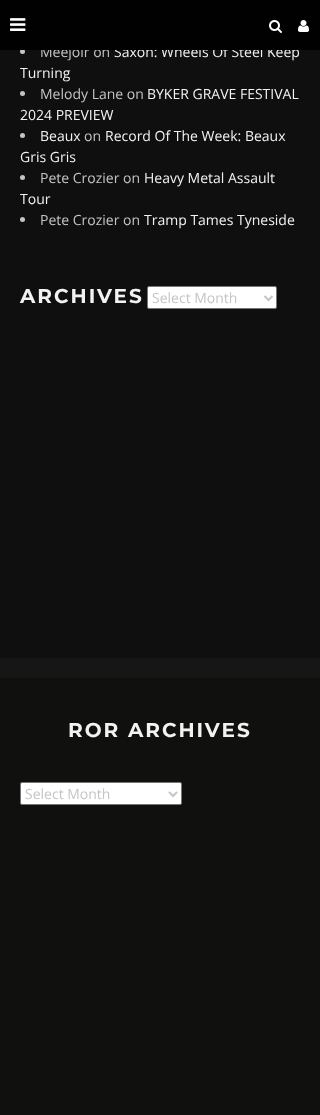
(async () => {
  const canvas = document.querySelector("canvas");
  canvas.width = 320;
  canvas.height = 1115;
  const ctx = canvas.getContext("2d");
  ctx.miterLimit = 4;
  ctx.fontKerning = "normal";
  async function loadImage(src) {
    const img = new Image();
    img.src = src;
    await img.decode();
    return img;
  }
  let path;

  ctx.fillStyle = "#161616";
  ctx.fillRect(0, 0, 320, 1115);
  ctx.fillStyle = "#0f0f0f";
  ctx.fillRect(0, 50, 320, 608);
  ctx.fillStyle = "#c5c5c5";
  ctx.beginPath();
  ctx.arc(22.5, 51.5, 2.5, 0, Math.PI * 2);
  ctx.fill();
  ctx.beginPath();
  ctx.arc(22.5, 93.5, 2.5, 0, Math.PI * 2);
  ctx.fill();
  ctx.beginPath();
  ctx.arc(22.5, 135.5, 2.5, 0, Math.PI * 2);
  ctx.fill();
  ctx.beginPath();
  ctx.arc(22.5, 177.5, 2.5, 0, Math.PI * 2);
  ctx.fill();
  ctx.beginPath();
  ctx.arc(22.5, 219.5, 2.5, 0, Math.PI * 2);
  ctx.fill();
  ctx.fillStyle = "#ffffff";
  ctx.beginPath();
  ctx.roundRect(147.5, 286.5, 129, 22, 1.5);
  ctx.fill();
  ctx.strokeStyle = "#767676";
  ctx.stroke();
  path = new Path2D("M264.5 296L268.5 300L272.5 296");
  ctx.strokeStyle = "#c5c5c5";
  ctx.lineWidth = 2;
  ctx.stroke(path);
  ctx.fillStyle = "#10100f";
  ctx.fillRect(0, 678, 320, 437);
  ctx.fillStyle = "#ffffff";
  ctx.beginPath();
  ctx.roundRect(20.5, 782.5, 161, 22, 1.5);
  ctx.fill();
  ctx.strokeStyle = "#767676";
  ctx.lineWidth = 1;
  ctx.stroke();
  path = new Path2D("M169 792L173 796L177 792");
  ctx.strokeStyle = "#c5c5c5";
  ctx.lineWidth = 2;
  ctx.stroke(path);
  ctx.font = "14px Open Sans";
  ctx.fillStyle = "#c5c5c5";
  ctx.fillText("Meejoir on", 40, 57);
  ctx.fillStyle = "#f2f2f2";
  ctx.fillText("Saxon: Wheels Of Steel Keep", 114, 57);
  ctx.fillStyle = "#010101";
  ctx.fillRect(0, 0, 320, 50);
  ctx.drawImage(await loadImage("img/3.png"), 298, 20, 11, 12);
  ctx.drawImage(await loadImage("img/2.png"), 269, 20, 13, 13);
  ctx.drawImage(await loadImage("img/1.png"), 10, 18, 16, 13);
  ctx.fillStyle = "#f2f2f2";
  ctx.fillText("Turning", 20, 78);
  ctx.fillStyle = "#c5c5c5";
  ctx.fillText("Melody Lane on", 40, 99);
  ctx.fillStyle = "#f2f2f2";
  for (const [text, x, y] of [
    ["BYKER GRAVE FESTIVAL", 147, 99],
    ["2024 PREVIEW", 20, 120],
    ["Beaux", 40, 141],
  ]) {
    ctx.fillText(text, x, y);
  }
  ctx.fillStyle = "#c5c5c5";
  ctx.fillText("on", 84, 141);
  ctx.fillStyle = "#f2f2f2";
  ctx.fillText("Record Of The Week: Beaux", 105, 141);
  ctx.fillText("Gris Gris", 20, 162);
  ctx.fillStyle = "#c5c5c5";
  ctx.fillText("Pete Crozier on", 40, 183);
  ctx.fillStyle = "#f2f2f2";
  ctx.fillText("Heavy Metal Assault", 144, 183);
  ctx.fillText("Tour", 20, 204);
  ctx.fillStyle = "#c5c5c5";
  ctx.fillText("Pete Crozier on", 40, 225);
  ctx.fillStyle = "#f2f2f2";
  ctx.fillText("Tramp Tames Tyneside", 144, 225);
  ctx.letterSpacing = "2px";
  ctx.font = "bold 20px Montserrat";
  ctx.fillText("ARCHIVES", 20, 303);
  ctx.letterSpacing = "0px";
  ctx.font = "14px Open Sans";
  ctx.fillStyle = "#c5c5c5";
  ctx.fillText("Select Month", 152, 303);
  ctx.letterSpacing = "2px";
  ctx.font = "bold 20px Montserrat";
  ctx.fillStyle = "#f2f2f2";
  ctx.fillText("ROR ARCHIVES", 68, 737);
  ctx.letterSpacing = "0px";
  ctx.font = "14px Open Sans";
  ctx.fillStyle = "#c5c5c5";
  ctx.fillText("Select Month", 25, 799);
})();
